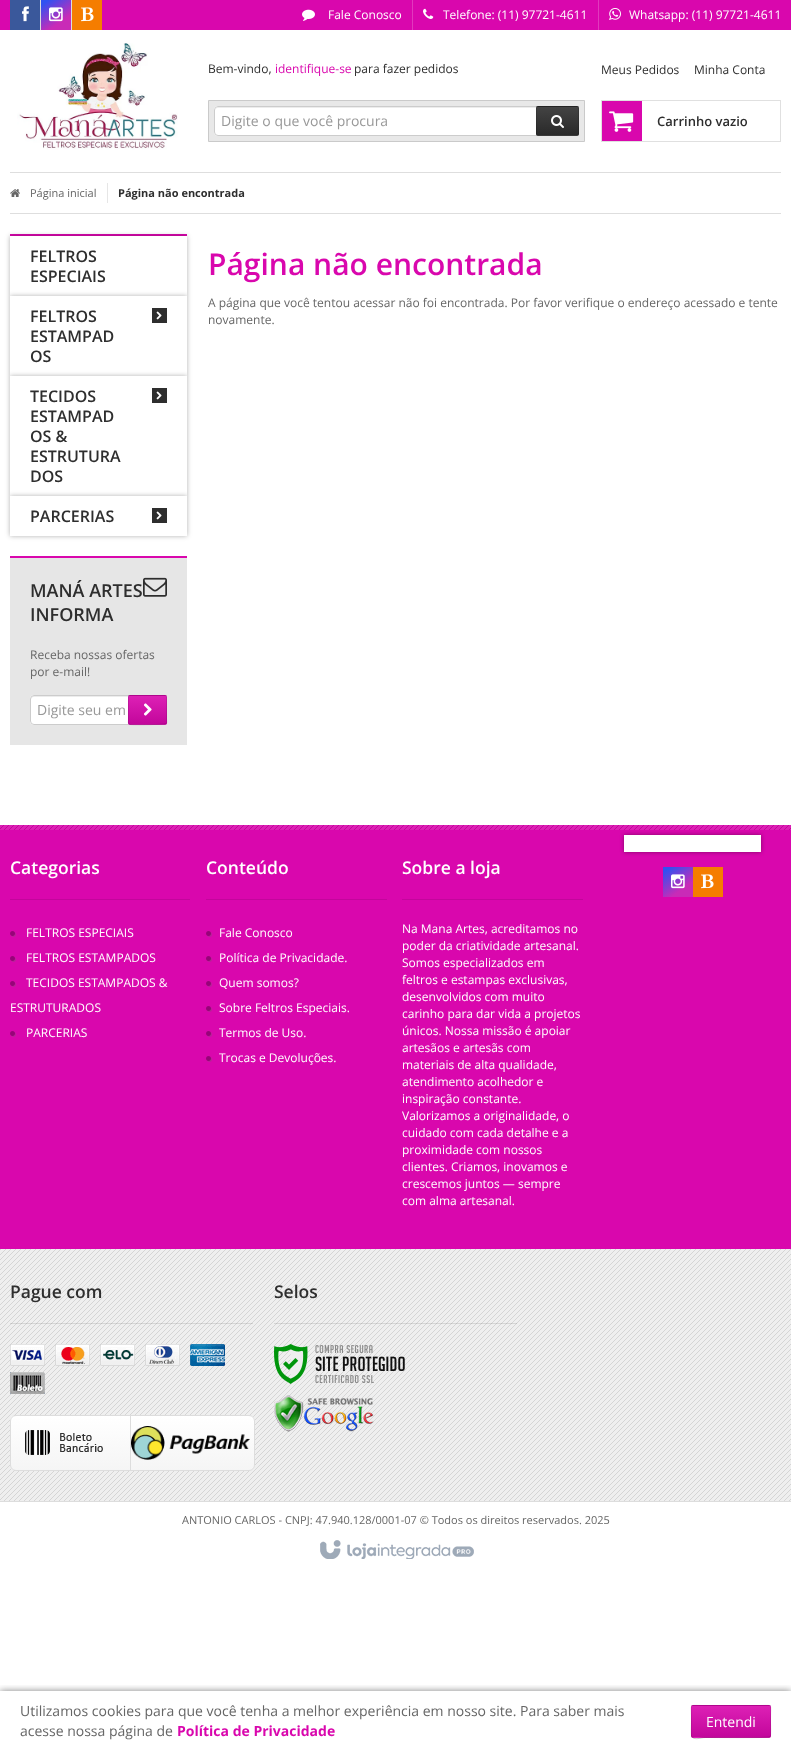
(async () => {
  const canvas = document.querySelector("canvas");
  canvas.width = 791;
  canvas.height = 1751;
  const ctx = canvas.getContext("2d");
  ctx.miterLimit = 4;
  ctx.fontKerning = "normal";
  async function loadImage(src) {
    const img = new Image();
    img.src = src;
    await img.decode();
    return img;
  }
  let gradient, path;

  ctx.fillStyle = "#ffffff";
  ctx.fillRect(0, 0, 791, 1751);
  ctx.fillStyle = "#d907ad";
  ctx.fillRect(0, 0, 791, 30);
  ctx.fillStyle = "#3a589b";
  ctx.fillRect(10, 0, 30, 30);
  ctx.drawImage(await loadImage("img/1.png"), 22, 6, 7, 16);
  ctx.fillStyle = "#dddddd";
  ctx.fillRect(40, 0, 1, 30);
  gradient = ctx.createLinearGradient(44, -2.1, 68, 32);
  gradient.addColorStop(0.1, "#3051f1");
  gradient.addColorStop(0.7, "#c92bb7");
  ctx.fillStyle = gradient;
  ctx.fillRect(41, 0, 30, 30);
  ctx.drawImage(await loadImage("img/2.png"), 49, 7, 14, 15);
  ctx.fillStyle = "#dddddd";
  ctx.fillRect(71, 0, 1, 30);
  ctx.fillStyle = "#f57d00";
  ctx.fillRect(72, 0, 30, 30);
  ctx.drawImage(await loadImage("img/3.png"), 81, 7, 13, 15);
  ctx.drawImage(await loadImage("img/4.png"), 302, 9, 13, 12);
  ctx.fillStyle = "#e139bd";
  ctx.fillRect(412, 0, 1, 30);
  ctx.drawImage(await loadImage("img/5.png"), 423, 8, 11, 11);
  ctx.fillRect(598, 0, 1, 30);
  ctx.drawImage(await loadImage("img/6.png"), 609, 8, 12, 12);
  ctx.drawImage(await loadImage("img/7.png"), 17, 43, 161, 107);
  ctx.fillStyle = "#e8e8e8";
  ctx.beginPath();
  ctx.rect(208.5, 100.5, 376, 41);
  ctx.fill();
  ctx.strokeStyle = "#cacaca";
  ctx.stroke();
  ctx.fillStyle = "#ffffff";
  ctx.beginPath();
  ctx.roundRect(214, 106, 357, 30, 4);
  ctx.fill();
  ctx.fillStyle = "#ececec";
  path = new Path2D("M218 108H567C569 108 570 109 570 111C570 109 569 107 567 107H218L216 108L215 111C215 109 216 108 218 108Z");
  ctx.fill(path);
  ctx.beginPath();
  ctx.roundRect(214.5, 106.5, 356, 29, 3.5);
  ctx.strokeStyle = "#cccccc";
  ctx.stroke();
  ctx.fillStyle = "#2e2e2e";
  ctx.beginPath();
  ctx.roundRect(536, 106, 43, 30, 2);
  ctx.fill();
  gradient = ctx.createLinearGradient(558, 79, 558, 107);
  gradient.addColorStop(0, "rgba(255, 255, 255, 0.1)");
  gradient.addColorStop(1, "rgba(0, 0, 0, 0.1)");
  ctx.fillStyle = gradient;
  ctx.fillRect(536, 106, 43, 1);
  gradient = ctx.createLinearGradient(558, 107, 558, 135);
  gradient.addColorStop(0, "rgba(255, 255, 255, 0.1)");
  gradient.addColorStop(1, "rgba(0, 0, 0, 0.1)");
  ctx.fillStyle = gradient;
  ctx.fillRect(536, 107, 43, 28);
  gradient = ctx.createLinearGradient(558, 135, 558, 163);
  gradient.addColorStop(0, "rgba(255, 255, 255, 0.1)");
  gradient.addColorStop(1, "rgba(0, 0, 0, 0.1)");
  ctx.fillStyle = gradient;
  ctx.fillRect(536, 135, 43, 1);
  ctx.beginPath();
  ctx.roundRect(536.5, 106.5, 42, 29, 1.5);
  ctx.strokeStyle = "rgba(0, 0, 0, 0.13)";
  ctx.stroke();
  ctx.drawImage(await loadImage("img/8.png"), 551, 115, 13, 13);
  ctx.strokeStyle = "#e0e0e0";
  ctx.strokeRect(601.5, 100.5, 179, 41);
  ctx.fillStyle = "#d907ad";
  ctx.fillRect(602, 101, 40, 40);
  ctx.drawImage(await loadImage("img/9.png"), 609, 111, 25, 21);
  ctx.fillStyle = "#dedede";
  ctx.fillRect(10, 172, 771, 1);
  ctx.fillRect(10, 213, 771, 1);
  ctx.drawImage(await loadImage("img/10.png"), 10, 189, 10, 8);
  ctx.fillStyle = "#e6e6e6";
  ctx.fillRect(107, 183, 1, 20);
  ctx.fillStyle = "#d907ad";
  ctx.fillRect(10, 234, 177, 2);
  ctx.save();
  path = new Path2D("M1 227H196V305H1ZM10 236H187V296H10Z");
  ctx.clip(path, "evenodd");
  ctx.fillStyle = "rgba(0, 0, 0, 0.3)";
  ctx.filter = "blur(2.5px)";
  ctx.beginPath();
  ctx.rect(10, 236, 177, 60);
  ctx.fill();
  ctx.filter = "none";
  ctx.restore();
  ctx.fillStyle = "rgba(0, 0, 0, 0.3)";
  ctx.filter = "blur(2.5px)";
  ctx.beginPath();
  ctx.rect(10, 296, 177, 80);
  ctx.fill();
  ctx.filter = "none";
  ctx.fillStyle = "#ffffff";
  ctx.fillRect(10, 296, 177, 80);
  ctx.fillStyle = "#2e2e2e";
  ctx.fillRect(152, 308, 15, 15);
  ctx.drawImage(await loadImage("img/11.png"), 156, 311, 6, 9);
  ctx.fillStyle = "rgba(0, 0, 0, 0.3)";
  ctx.filter = "blur(2.5px)";
  ctx.beginPath();
  ctx.rect(10, 376, 177, 120);
  ctx.fill();
  ctx.filter = "none";
  ctx.fillStyle = "#ffffff";
  ctx.fillRect(10, 376, 177, 120);
  ctx.fillStyle = "#2e2e2e";
  ctx.fillRect(152, 388, 15, 15);
  ctx.drawImage(await loadImage("img/11.png"), 156, 391, 6, 9);
  ctx.fillStyle = "rgba(0, 0, 0, 0.3)";
  ctx.filter = "blur(2.5px)";
  ctx.beginPath();
  ctx.rect(10, 496, 177, 40);
  ctx.fill();
  ctx.filter = "none";
  ctx.fillStyle = "#ffffff";
  ctx.fillRect(10, 496, 177, 40);
  ctx.fillStyle = "#2e2e2e";
  ctx.fillRect(152, 508, 15, 15);
  ctx.drawImage(await loadImage("img/11.png"), 156, 511, 6, 9);
  ctx.fillStyle = "#e6e6e6";
  ctx.fillRect(10, 558, 177, 187);
  ctx.fillStyle = "#d907ad";
  ctx.fillRect(10, 556, 177, 2);
  ctx.drawImage(await loadImage("img/12.png"), 143, 577, 24, 20);
  ctx.fillStyle = "#ffffff";
  ctx.beginPath();
  ctx.roundRect(30, 695, 137, 30, 4);
  ctx.fill();
  ctx.fillStyle = "#ececec";
  path = new Path2D("M34 697H163C165 697 166 698 166 700C166 698 166 696 164 696H33C31 696 31 698 31 700C31 698 32 697 34 697Z");
  ctx.fill(path);
  ctx.beginPath();
  ctx.roundRect(30.5, 695.5, 136, 29, 3.5);
  ctx.strokeStyle = "#cccccc";
  ctx.stroke();
  ctx.fillStyle = "#d907ad";
  ctx.beginPath();
  ctx.roundRect(128, 695, 39, 30, 2);
  ctx.fill();
  gradient = ctx.createLinearGradient(148, 668, 148, 696);
  gradient.addColorStop(0, "rgba(255, 255, 255, 0.1)");
  gradient.addColorStop(1, "rgba(0, 0, 0, 0.1)");
  ctx.fillStyle = gradient;
  ctx.fillRect(128, 695, 39, 1);
  gradient = ctx.createLinearGradient(148, 696, 148, 724);
  gradient.addColorStop(0, "rgba(255, 255, 255, 0.1)");
  gradient.addColorStop(1, "rgba(0, 0, 0, 0.1)");
  ctx.fillStyle = gradient;
  ctx.fillRect(128, 696, 39, 28);
  gradient = ctx.createLinearGradient(148, 724, 148, 752);
  gradient.addColorStop(0, "rgba(255, 255, 255, 0.1)");
  gradient.addColorStop(1, "rgba(0, 0, 0, 0.1)");
  ctx.fillStyle = gradient;
  ctx.fillRect(128, 724, 39, 1);
  path = new Path2D("M166 724C165.5 724.5 133 725 130 724.5L129 724");
  ctx.strokeStyle = "rgba(0, 0, 0, 0.2)";
  ctx.stroke(path);
  path = new Path2D("M129 724C127.5 723 128.5 720.5 128.5 718.5V701.5C128.5 694 128 695.5 136 695.5H159C167 695.5 166.5 694 166.5 701.5V718.5C166.5 720.5 167.5 723 166 724");
  ctx.strokeStyle = "rgba(0, 0, 0, 0.1)";
  ctx.stroke(path);
  ctx.drawImage(await loadImage("img/13.png"), 144, 703, 8, 13);
  ctx.fillStyle = "#d907ad";
  ctx.fillRect(0, 825, 791, 424);
  ctx.drawImage(await loadImage("img/14.png"), 0, 825, 791, 5);
  ctx.fillStyle = "#c3069c";
  ctx.fillRect(10, 899, 180, 1);
  ctx.drawImage(await loadImage("img/15.png"), 10, 931, 6, 6);
  ctx.drawImage(await loadImage("img/15.png"), 10, 956, 6, 6);
  ctx.drawImage(await loadImage("img/15.png"), 10, 981, 6, 6);
  ctx.drawImage(await loadImage("img/15.png"), 10, 1031, 6, 6);
  ctx.fillRect(206, 899, 181, 1);
  ctx.drawImage(await loadImage("img/15.png"), 206, 931, 6, 6);
  ctx.drawImage(await loadImage("img/15.png"), 206, 956, 6, 6);
  ctx.drawImage(await loadImage("img/15.png"), 206, 981, 6, 6);
  ctx.drawImage(await loadImage("img/15.png"), 206, 1006, 6, 6);
  ctx.drawImage(await loadImage("img/15.png"), 206, 1031, 6, 6);
  ctx.drawImage(await loadImage("img/15.png"), 206, 1056, 6, 6);
  ctx.fillRect(402, 899, 181, 1);
  ctx.fillStyle = "rgba(0, 0, 0, 0.4)";
  ctx.filter = "blur(2px)";
  ctx.beginPath();
  ctx.rect(624, 835, 137, 17);
  ctx.fill();
  ctx.filter = "none";
  ctx.fillStyle = "#ffffff";
  ctx.fillRect(624, 835, 137, 17);
  gradient = ctx.createLinearGradient(666, 865, 690, 899);
  gradient.addColorStop(0.1, "#3051f1");
  gradient.addColorStop(0.7, "#c92bb7");
  ctx.fillStyle = gradient;
  ctx.fillRect(663, 867, 30, 30);
  ctx.drawImage(await loadImage("img/16.png"), 671, 874, 14, 15);
  ctx.fillStyle = "#f57d00";
  ctx.fillRect(693, 867, 30, 30);
  ctx.drawImage(await loadImage("img/3.png"), 701, 874, 13, 15);
  ctx.fillStyle = "#eeeeee";
  ctx.fillRect(0, 1249, 791, 252);
  ctx.drawImage(await loadImage("img/17.png"), 0, 1249, 791, 252);
  ctx.fillStyle = "rgba(0, 0, 0, 0.1)";
  ctx.fillRect(10, 1323, 243, 1);
  ctx.drawImage(await loadImage("img/18.png"), 10, 1344, 35, 22);
  ctx.drawImage(await loadImage("img/19.png"), 55, 1344, 35, 22);
  ctx.drawImage(await loadImage("img/20.png"), 100, 1344, 35, 22);
  ctx.drawImage(await loadImage("img/21.png"), 145, 1344, 35, 22);
  ctx.drawImage(await loadImage("img/22.png"), 190, 1344, 35, 22);
  ctx.drawImage(await loadImage("img/23.png"), 10, 1372, 35, 22);
  ctx.save();
  ctx.beginPath();
  ctx.roundRect(10, 1415, 245, 56, 6);
  ctx.clip();
  gradient = ctx.createLinearGradient(133, 1416, 133, 1470);
  gradient.addColorStop(0, "#ffffff");
  gradient.addColorStop(1, "#f5f5f5");
  ctx.fillStyle = gradient;
  ctx.fillRect(10, 1416, 245, 54);
  ctx.restore();
  ctx.beginPath();
  ctx.roundRect(10.5, 1415.5, 244, 55, 5.5);
  ctx.strokeStyle = "#dddddd";
  ctx.stroke();
  ctx.drawImage(await loadImage("img/24.png"), 25, 1430, 78, 25);
  ctx.fillStyle = "#dddddd";
  ctx.fillRect(130, 1416, 1, 54);
  ctx.drawImage(await loadImage("img/25.png"), 131, 1426, 119, 34);
  ctx.fillStyle = "rgba(0, 0, 0, 0.1)";
  ctx.fillRect(274, 1323, 243, 1);
  ctx.drawImage(await loadImage("img/26.png"), 274, 1344, 131, 40);
  ctx.drawImage(await loadImage("img/27.png"), 274, 1395, 100, 37);
  ctx.fillStyle = "#dddddd";
  ctx.fillRect(0, 1501, 791, 1);
  ctx.drawImage(await loadImage("img/28.png"), 320, 1540, 154, 19);
  ctx.save();
  ctx.beginPath();
  ctx.rect(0, 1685, 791, 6);
  ctx.clip();
  ctx.fillStyle = "rgba(0, 0, 0, 0.5)";
  ctx.filter = "blur(3.5px)";
  ctx.beginPath();
  ctx.rect(0, 1691, 791, 60);
  ctx.fill();
  ctx.filter = "none";
  ctx.restore();
  ctx.fillStyle = "#d907ad";
  ctx.beginPath();
  ctx.roundRect(691, 1705, 80, 33, 2);
  ctx.fill();
  gradient = ctx.createLinearGradient(731, 1675, 731, 1706);
  gradient.addColorStop(0, "rgba(255, 255, 255, 0.1)");
  gradient.addColorStop(1, "rgba(0, 0, 0, 0.1)");
  ctx.fillStyle = gradient;
  ctx.fillRect(691, 1705, 80, 1);
  gradient = ctx.createLinearGradient(731, 1706, 731, 1737);
  gradient.addColorStop(0, "rgba(255, 255, 255, 0.1)");
  gradient.addColorStop(1, "rgba(0, 0, 0, 0.1)");
  ctx.fillStyle = gradient;
  ctx.fillRect(691, 1706, 80, 31);
  gradient = ctx.createLinearGradient(731, 1737, 731, 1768);
  gradient.addColorStop(0, "rgba(255, 255, 255, 0.1)");
  gradient.addColorStop(1, "rgba(0, 0, 0, 0.1)");
  ctx.fillStyle = gradient;
  ctx.fillRect(691, 1737, 80, 1);
  path = new Path2D("M770 1737C769 1738 712 1737.5 705.5 1737.5C701 1737.5 695 1740.5 692 1737");
  ctx.strokeStyle = "rgba(0, 0, 0, 0.2)";
  ctx.stroke(path);
  path = new Path2D("M692 1737C690.5 1735.5 691.5 1724 691.5 1721.5C691.5 1702 687.5 1705.5 705.5 1705.5H756.5C774.5 1705.5 770.5 1702 770.5 1721.5C770.5 1724 771.5 1735.5 770 1737");
  ctx.strokeStyle = "rgba(0, 0, 0, 0.1)";
  ctx.stroke(path);
  ctx.font = "12px Open Sans";
  ctx.fillStyle = "#ffffff";
  for (const [text, x, y] of [
    ["Fale Conosco", 328, 19],
    ["Telefone: (11) 97721-4611", 443, 19],
    ["Whatsapp: (11) 97721-4611", 629, 19],
  ]) {
    ctx.fillText(text, x, y);
  }
  ctx.fillStyle = "#2e2e2e";
  ctx.fillText("Bem-vindo,", 208, 73);
  ctx.fillStyle = "#d907ad";
  ctx.fillText("identifique-se", 275, 73);
  ctx.fillStyle = "#2e2e2e";
  for (const [text, x, y] of [
    ["para fazer pedidos", 354, 73],
    ["Meus Pedidos", 601, 74],
    ["Minha Conta", 694, 74],
  ]) {
    ctx.fillText(text, x, y);
  }
  ctx.font = "14px Open Sans";
  ctx.fillStyle = "#999999";
  ctx.fillText("Digite o que você procura", 221, 126);
  ctx.font = "600 13px Open Sans";
  ctx.fillStyle = "#2e2e2e";
  ctx.fillText("Carrinho vazio", 657, 126);
  ctx.font = "11px Open Sans";
  ctx.fillStyle = "#666666";
  ctx.fillText("Página inicial", 30, 197);
  ctx.font = "bold 11px Open Sans";
  ctx.fillStyle = "#2e2e2e";
  ctx.fillText("Página não encontrada", 118, 197);
  ctx.font = "600 16px Open Sans";
  for (const [text, x, y] of [
    ["FELTROS", 30, 262],
    ["ESPECIAIS", 30, 282],
    ["FELTROS", 30, 322],
    ["ESTAMPAD", 30, 342],
    ["OS", 30, 362],
    ["TECIDOS", 30, 402],
    ["ESTAMPAD", 30, 422],
    ["OS &", 30, 442],
    ["ESTRUTURA", 30, 462],
    ["DOS", 30, 482],
    ["PARCERIAS", 30, 522],
  ]) {
    ctx.fillText(text, x, y);
  }
  ctx.font = "600 18px Open Sans";
  ctx.fillText("MANÁ ARTES", 30, 597);
  ctx.fillText("INFORMA", 30, 621);
  ctx.font = "12px Open Sans";
  ctx.fillStyle = "#666666";
  ctx.fillText("Receba nossas ofertas", 30, 659);
  ctx.fillText("por e-mail!", 30, 676);
  ctx.font = "14px Open Sans";
  ctx.fillStyle = "#999999";
  ctx.fillText("Digite seu em", 37, 715);
  ctx.font = "600 30px Open Sans";
  ctx.fillStyle = "#d907ad";
  ctx.fillText("Página não encontrada", 208, 275);
  ctx.font = "12px Open Sans";
  ctx.fillStyle = "#666666";
  ctx.fillText("A página que você tentou acessar não foi encontrada. Por favor verifique o endereço acessado e tente", 208, 307);
  ctx.fillText("novamente.", 208, 324);
  ctx.font = "600 17.5px Open Sans";
  ctx.fillStyle = "#ffffff";
  ctx.fillText("Categorias", 10, 874);
  ctx.font = "12px Open Sans";
  for (const [text, x, y] of [
    ["FELTROS ESPECIAIS", 26, 937],
    ["FELTROS ESTAMPADOS", 26, 962],
    ["TECIDOS ESTAMPADOS &", 26, 987],
    ["ESTRUTURADOS", 10, 1012],
    ["PARCERIAS", 26, 1037],
  ]) {
    ctx.fillText(text, x, y);
  }
  ctx.font = "600 17.5px Open Sans";
  ctx.fillText("Conteúdo", 206, 874);
  ctx.font = "12px Open Sans";
  for (const [text, x, y] of [
    ["Fale Conosco", 219, 937],
    ["Política de Privacidade.", 219, 962],
    ["Quem somos?", 219, 987],
    ["Sobre Feltros Especiais.", 219, 1012],
    ["Termos de Uso.", 219, 1037],
    ["Trocas e Devoluções.", 219, 1062],
  ]) {
    ctx.fillText(text, x, y);
  }
  ctx.font = "600 17.5px Open Sans";
  ctx.fillText("Sobre a loja", 402, 874);
  ctx.font = "12px Open Sans";
  for (const [text, x, y] of [
    ["Na Mana Artes, acreditamos no", 402, 933],
    ["poder da criatividade artesanal.", 402, 950],
    ["Somos especializados em", 402, 967],
    ["feltros e estampas exclusivas,", 402, 984],
    ["desenvolvidos com muito", 402, 1001],
    ["carinho para dar vida a projetos", 402, 1018],
    ["únicos. Nossa missão é apoiar", 402, 1035],
    ["artesãos e artesãs com", 402, 1052],
    ["materiais de alta qualidade,", 402, 1069],
    ["atendimento acolhedor e", 402, 1086],
    ["inspiração constante.", 402, 1103],
    ["Valorizamos a originalidade, o", 402, 1120],
    ["cuidado com cada detalhe e a", 402, 1137],
    ["proximidade com nossos", 402, 1154],
    ["clientes. Criamos, inovamos e", 402, 1171],
    ["crescemos juntos — sempre", 402, 1188],
    ["com alma artesanal.", 402, 1205],
  ]) {
    ctx.fillText(text, x, y);
  }
  ctx.font = "600 17.5px Open Sans";
  ctx.fillStyle = "#2e2e2e";
  ctx.fillText("Pague com", 10, 1298);
  ctx.fillText("Selos", 274, 1298);
  ctx.font = "11px Open Sans";
  ctx.fillStyle = "#666666";
  ctx.fillText("ANTONIO CARLOS - CNPJ: 47.940.128/0001-07 © Todos os direitos reservados. 2025", 182, 1524);
  ctx.font = "14px Open Sans";
  ctx.fillText("Utilizamos cookies para que você tenha a melhor experiência em nosso site. Para saber mais", 20, 1716);
  ctx.fillText("acesse nossa página de", 20, 1736);
  ctx.font = "bold 14px Open Sans";
  ctx.fillStyle = "#d907ad";
  ctx.fillText("Política de Privacidade", 177, 1736);
  ctx.font = "14px Open Sans";
  ctx.fillStyle = "#ffffff";
  ctx.fillText("Entendi", 706, 1727);
})();
